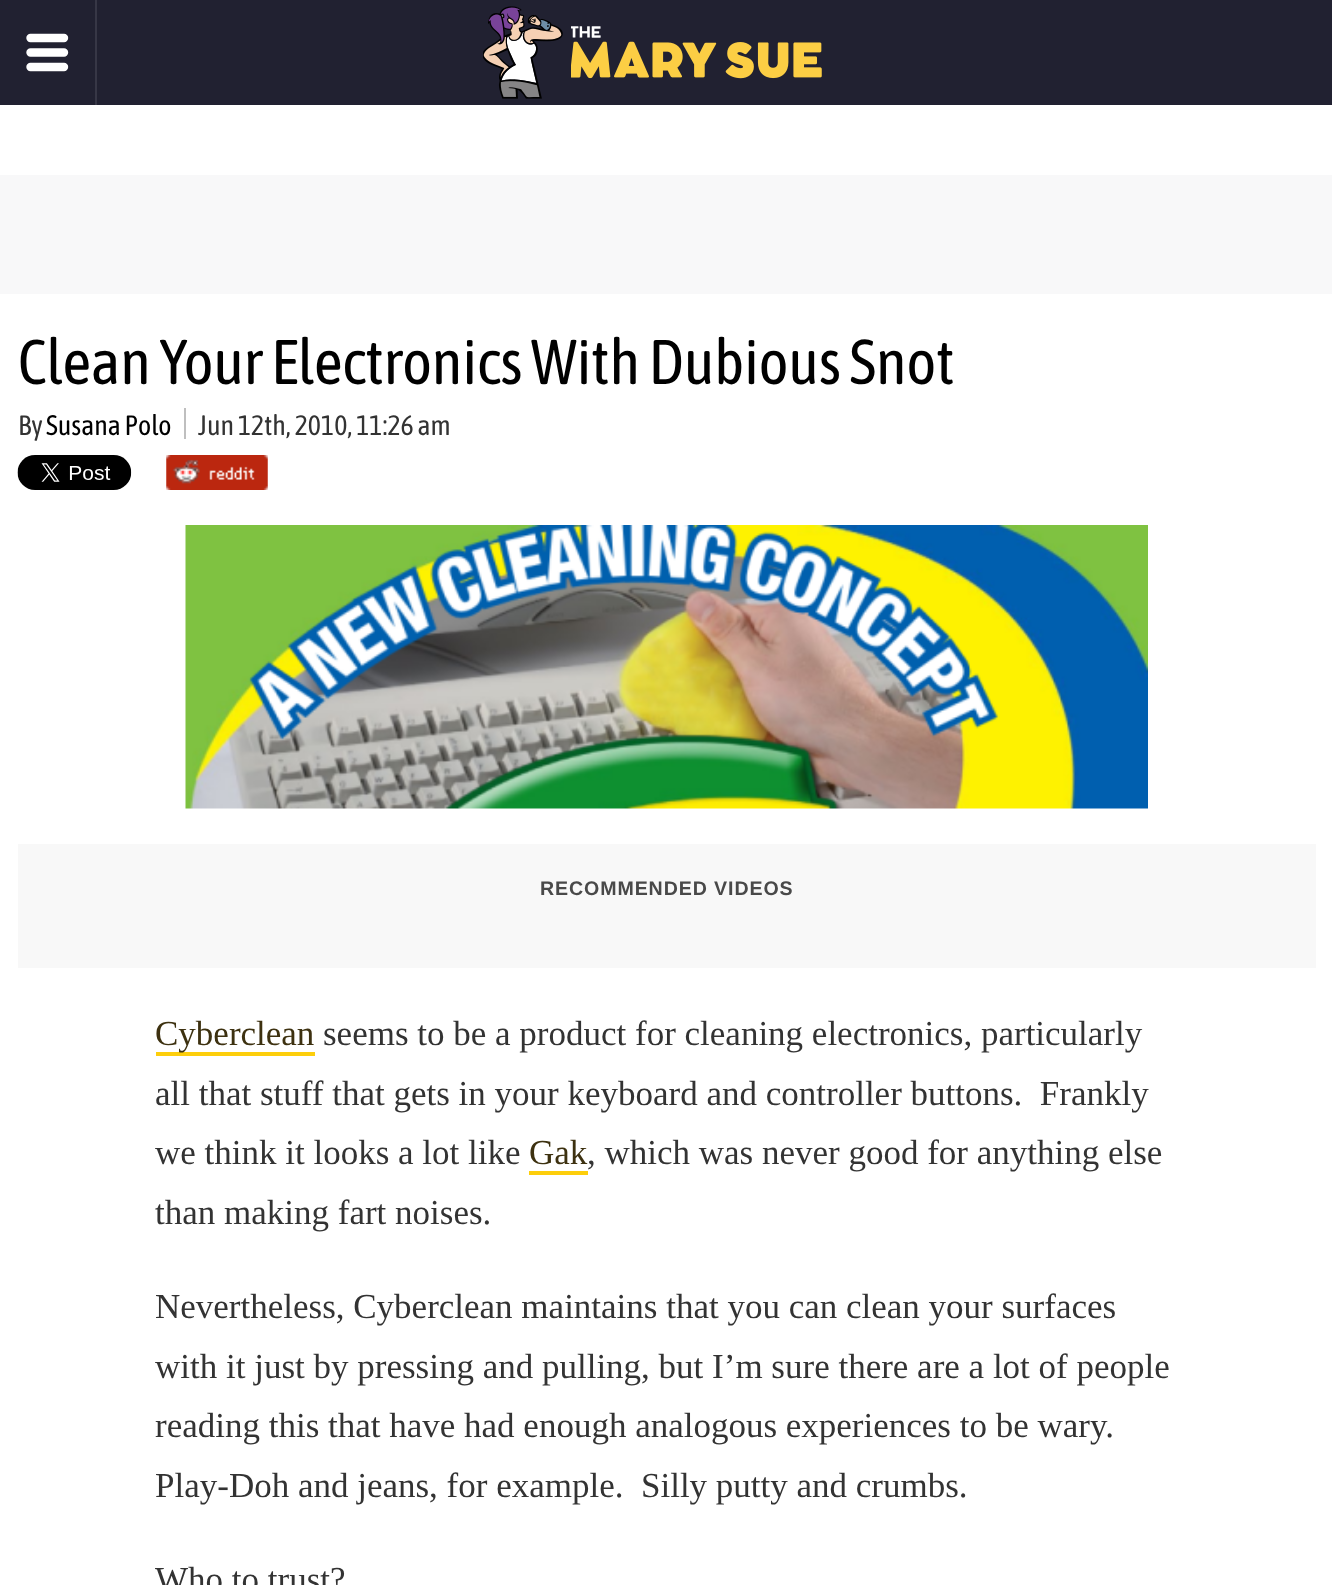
(async () => {
  const canvas = document.querySelector("canvas");
  canvas.width = 1332;
  canvas.height = 1585;
  const ctx = canvas.getContext("2d");
  ctx.miterLimit = 4;
  ctx.fontKerning = "normal";
  async function loadImage(src) {
    const img = new Image();
    img.src = src;
    await img.decode();
    return img;
  }
  let path;

  ctx.fillStyle = "#ffffff";
  ctx.fillRect(0, 0, 1332, 1585);
  ctx.fillStyle = "#212131";
  ctx.fillRect(0, 0, 1332, 105);
  ctx.fillStyle = "#373746";
  ctx.fillRect(95, 0, 2, 105);
  path = new Path2D("M30.5 38H64M30.5 52.5H64M30.5 67H64");
  ctx.strokeStyle = "#ffffff";
  ctx.lineWidth = 8.4;
  ctx.lineCap = "round";
  ctx.stroke(path);
  ctx.drawImage(await loadImage("img/1.png"), 483, 6, 80, 93);
  ctx.drawImage(await loadImage("img/2.png"), 571, 26, 251, 53);
  ctx.fillStyle = "#f8f8f9";
  ctx.fillRect(0, 175, 1332, 119);
  ctx.fillStyle = "#bfbfbf";
  ctx.fillRect(184, 408, 2, 31);
  ctx.drawImage(await loadImage("img/3.png"), 17, 455, 115, 35);
  ctx.drawImage(await loadImage("img/4.png"), 166, 455, 102, 35);
  ctx.drawImage(await loadImage("img/5.png"), 185, 525, 963, 284);
  for (const [x, y, w, h, color] of [
    [18, 844, 1298, 124, "#f8f8f8"],
    [156, 1052, 159, 4, "#fdce0b"],
    [529, 1171, 59, 4, "#fdce0b"],
  ]) {
    ctx.fillStyle = color;
    ctx.fillRect(x, y, w, h);
  }
  ctx.font = "63px Asap Condensed";
  ctx.fillStyle = "#000000";
  ctx.fillText("Clean Your Electronics With Dubious Snot", 18, 384);
  ctx.font = "28px Asap Condensed";
  ctx.fillStyle = "#333333";
  ctx.fillText("By", 18, 435);
  ctx.fillStyle = "#000000";
  ctx.fillText("Susana Polo", 46, 435);
  ctx.fillStyle = "#333333";
  ctx.fillText("Jun 12th, 2010, 11:26 am", 198, 435);
  ctx.letterSpacing = "0.9px";
  ctx.font = "bold 19.6px Liberation Sans";
  ctx.fillStyle = "#494949";
  ctx.fillText("RECOMMENDED VIDEOS", 540, 895);
  ctx.letterSpacing = "0px";
  ctx.font = "35px Liberation Serif";
  ctx.fillStyle = "#3d3110";
  ctx.fillText("Cyberclean", 155, 1045);
  ctx.fillStyle = "#333333";
  for (const [text, x, y] of [
    ["seems to be a product for cleaning electronics, particularly", 323, 1045],
    ["all that stuff that gets in your keyboard and controller buttons.  Frankly", 155, 1105],
    ["we think it looks a lot like", 155, 1164],
  ]) {
    ctx.fillText(text, x, y);
  }
  ctx.fillStyle = "#3d3110";
  ctx.fillText("Gak", 529, 1164);
  ctx.fillStyle = "#333333";
  for (const [text, x, y] of [
    [", which was never good for anything else", 587, 1164],
    ["than making fart noises.", 155, 1224],
    ["Nevertheless, Cyberclean maintains that you can clean your surfaces", 155, 1318],
    ["with it just by pressing and pulling, but I’m sure there are a lot of people", 155, 1378],
    ["reading this that have had enough analogous experiences to be wary.", 155, 1437],
    ["Play-Doh and jeans, for example.  Silly putty and crumbs.", 155, 1497],
    ["Who to trust?", 155, 1591],
  ]) {
    ctx.fillText(text, x, y);
  }
})();
